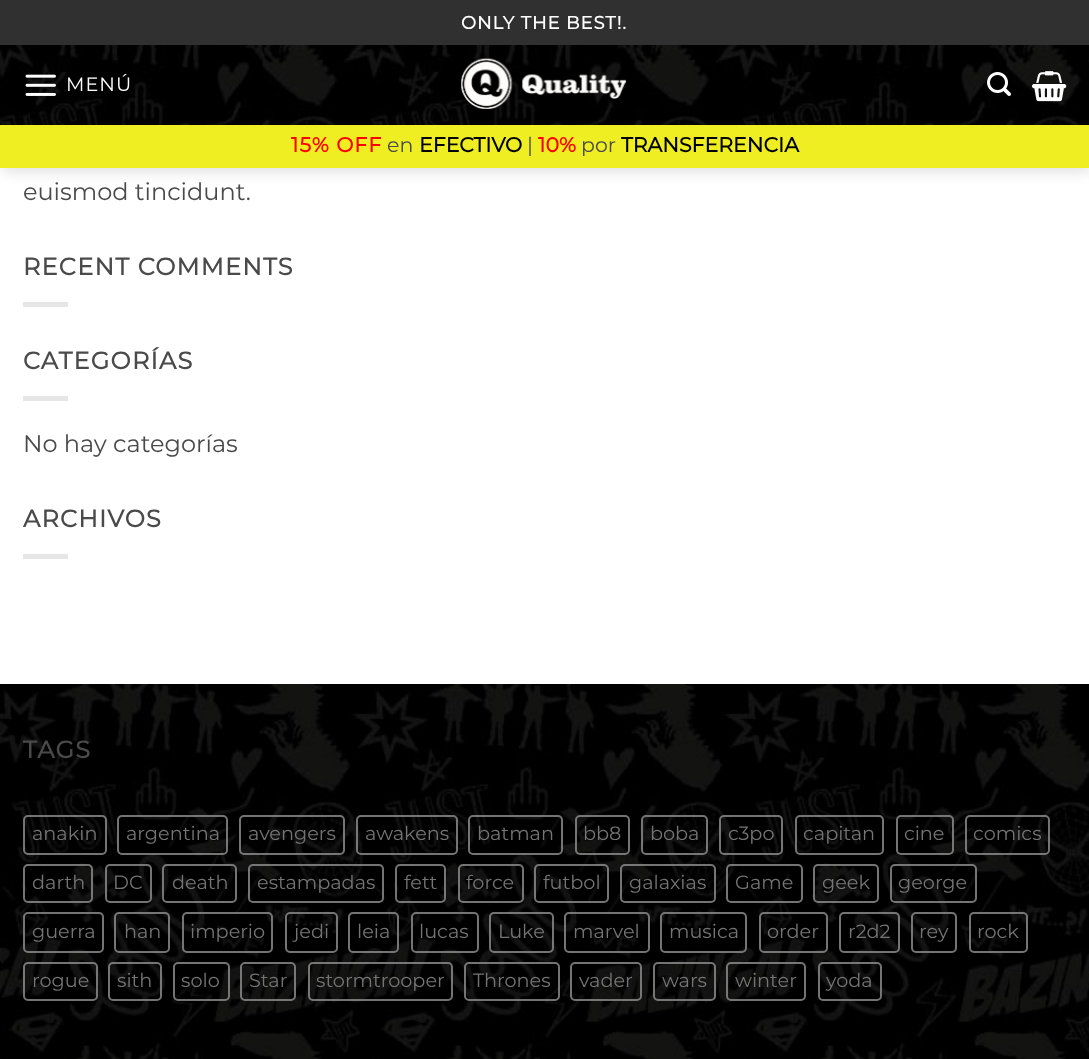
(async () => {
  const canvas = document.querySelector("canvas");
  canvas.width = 1089;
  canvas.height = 1059;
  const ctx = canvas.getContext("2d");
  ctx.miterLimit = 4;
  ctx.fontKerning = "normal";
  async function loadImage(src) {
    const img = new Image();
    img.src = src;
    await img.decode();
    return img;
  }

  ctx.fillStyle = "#ffffff";
  ctx.fillRect(0, 0, 1089, 1059);
  ctx.fillStyle = "rgba(0, 0, 0, 0.15)";
  ctx.filter = "blur(7.5px)";
  ctx.beginPath();
  ctx.rect(2, 2, 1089, 168);
  ctx.fill();
  ctx.filter = "none";
  ctx.fillStyle = "#303030";
  ctx.fillRect(0, 0, 1089, 45);
  ctx.drawImage(await loadImage("img/1.png"), 0, 45, 1089, 80);
  ctx.drawImage(await loadImage("img/2.png"), 25, 74, 31, 22);
  ctx.drawImage(await loadImage("img/3.png"), 461, 58, 166, 51);
  ctx.drawImage(await loadImage("img/4.png"), 987, 72, 24, 24);
  ctx.drawImage(await loadImage("img/5.png"), 1032, 71, 35, 31);
  for (const [x, y, w, h, color] of [
    [0, 125, 1089, 43, "#eeee22"],
    [23, 302, 45, 5, "#e6e6e6"],
    [23, 396, 45, 5, "#e6e6e6"],
    [23, 554, 45, 5, "#e6e6e6"],
  ]) {
    ctx.fillStyle = color;
    ctx.fillRect(x, y, w, h);
  }
  ctx.drawImage(await loadImage("img/6.png"), 0, 684, 1089, 375);
  ctx.beginPath();
  ctx.roundRect(24, 816, 82, 38, 4);
  ctx.strokeStyle = "rgba(145, 145, 145, 0.8)";
  ctx.lineWidth = 2;
  ctx.stroke();
  ctx.beginPath();
  ctx.roundRect(118, 816, 109, 38, 4);
  ctx.stroke();
  ctx.beginPath();
  ctx.roundRect(240, 816, 104, 38, 4);
  ctx.stroke();
  ctx.beginPath();
  ctx.roundRect(357, 816, 100, 38, 4);
  ctx.stroke();
  ctx.beginPath();
  ctx.roundRect(469, 816, 93, 38, 4);
  ctx.stroke();
  ctx.beginPath();
  ctx.roundRect(576, 816, 53, 38, 4);
  ctx.stroke();
  ctx.beginPath();
  ctx.roundRect(642, 816, 65, 38, 4);
  ctx.stroke();
  ctx.beginPath();
  ctx.roundRect(720, 816, 62, 38, 4);
  ctx.stroke();
  ctx.beginPath();
  ctx.roundRect(796, 816, 87, 38, 4);
  ctx.stroke();
  ctx.beginPath();
  ctx.roundRect(897, 816, 56, 38, 4);
  ctx.stroke();
  ctx.beginPath();
  ctx.roundRect(966, 816, 83, 38, 4);
  ctx.stroke();
  ctx.beginPath();
  ctx.roundRect(24, 865, 68, 37, 4);
  ctx.stroke();
  ctx.beginPath();
  ctx.roundRect(106, 865, 45, 37, 4);
  ctx.stroke();
  ctx.beginPath();
  ctx.roundRect(163, 865, 73, 37, 4);
  ctx.stroke();
  ctx.beginPath();
  ctx.roundRect(249, 865, 134, 37, 4);
  ctx.stroke();
  ctx.beginPath();
  ctx.roundRect(396, 865, 49, 37, 4);
  ctx.stroke();
  ctx.beginPath();
  ctx.roundRect(459, 865, 64, 37, 4);
  ctx.stroke();
  ctx.beginPath();
  ctx.roundRect(535, 865, 73, 37, 4);
  ctx.stroke();
  ctx.beginPath();
  ctx.roundRect(621, 865, 94, 37, 4);
  ctx.stroke();
  ctx.beginPath();
  ctx.roundRect(727, 865, 75, 37, 4);
  ctx.stroke();
  ctx.beginPath();
  ctx.roundRect(814, 865, 64, 37, 4);
  ctx.stroke();
  ctx.beginPath();
  ctx.roundRect(891, 865, 85, 37, 4);
  ctx.stroke();
  ctx.beginPath();
  ctx.roundRect(24, 913, 79, 39, 4);
  ctx.stroke();
  ctx.beginPath();
  ctx.roundRect(115, 913, 54, 39, 4);
  ctx.stroke();
  ctx.beginPath();
  ctx.roundRect(183, 913, 89, 39, 4);
  ctx.stroke();
  ctx.beginPath();
  ctx.roundRect(286, 913, 51, 39, 4);
  ctx.stroke();
  ctx.beginPath();
  ctx.roundRect(349, 913, 49, 39, 4);
  ctx.stroke();
  ctx.beginPath();
  ctx.roundRect(412, 913, 66, 39, 4);
  ctx.stroke();
  ctx.beginPath();
  ctx.roundRect(490, 913, 63, 39, 4);
  ctx.stroke();
  ctx.beginPath();
  ctx.roundRect(565, 913, 84, 39, 4);
  ctx.stroke();
  ctx.beginPath();
  ctx.roundRect(661, 913, 85, 39, 4);
  ctx.stroke();
  ctx.beginPath();
  ctx.roundRect(760, 913, 67, 39, 4);
  ctx.stroke();
  ctx.beginPath();
  ctx.roundRect(840, 913, 59, 39, 4);
  ctx.stroke();
  ctx.beginPath();
  ctx.roundRect(912, 913, 44, 39, 4);
  ctx.stroke();
  ctx.beginPath();
  ctx.roundRect(970, 913, 57, 39, 4);
  ctx.stroke();
  ctx.beginPath();
  ctx.roundRect(24, 963, 73, 37, 4);
  ctx.stroke();
  ctx.beginPath();
  ctx.roundRect(109, 963, 52, 37, 4);
  ctx.stroke();
  ctx.beginPath();
  ctx.roundRect(174, 963, 55, 37, 4);
  ctx.stroke();
  ctx.beginPath();
  ctx.roundRect(241, 963, 54, 37, 4);
  ctx.stroke();
  ctx.beginPath();
  ctx.roundRect(309, 963, 143, 37, 4);
  ctx.stroke();
  ctx.beginPath();
  ctx.roundRect(465, 963, 94, 37, 4);
  ctx.stroke();
  ctx.beginPath();
  ctx.roundRect(571, 963, 70, 37, 4);
  ctx.stroke();
  ctx.beginPath();
  ctx.roundRect(654, 963, 61, 37, 4);
  ctx.stroke();
  ctx.beginPath();
  ctx.roundRect(727, 963, 78, 37, 4);
  ctx.stroke();
  ctx.beginPath();
  ctx.roundRect(819, 963, 62, 37, 4);
  ctx.stroke();
  ctx.letterSpacing = "0.9px";
  ctx.font = "bold 18px Montserrat";
  ctx.fillStyle = "#ffffff";
  ctx.fillText("ONLY THE BEST!.", 461, 29);
  ctx.letterSpacing = "1px";
  ctx.font = "100 19.25px Montserrat";
  ctx.fillText("MENÚ", 66, 91);
  ctx.font = "bold 20.5px Montserrat";
  ctx.fillStyle = "#ff0000";
  ctx.fillText("15% OFF", 291, 152);
  ctx.letterSpacing = "0px";
  ctx.font = "100 20.5px Montserrat";
  ctx.fillStyle = "#4a4a4a";
  ctx.fillText("en", 387, 152);
  ctx.font = "bold 20.5px Montserrat";
  ctx.fillStyle = "#000000";
  ctx.fillText("EFECTIVO", 419, 152);
  ctx.font = "100 20.5px Montserrat";
  ctx.fillStyle = "#4a4a4a";
  ctx.fillText("|", 527, 152);
  ctx.font = "bold 20.5px Montserrat";
  ctx.fillStyle = "#ff0000";
  ctx.fillText("10%", 538, 152);
  ctx.font = "100 20.5px Montserrat";
  ctx.fillStyle = "#4a4a4a";
  ctx.fillText("por", 581, 152);
  ctx.font = "bold 20.5px Montserrat";
  ctx.fillStyle = "#000000";
  ctx.fillText("TRANSFERENCIA", 621, 152);
  ctx.font = "100 24px Montserrat";
  ctx.fillStyle = "#4a4a4a";
  ctx.fillText("euismod tincidunt.", 23, 200);
  ctx.letterSpacing = "1.25px";
  ctx.font = "bold 24px Montserrat";
  ctx.fillText("RECENT COMMENTS", 23, 275);
  ctx.fillText("CATEGORÍAS", 23, 369);
  ctx.letterSpacing = "0px";
  ctx.font = "100 24px Montserrat";
  ctx.fillText("No hay categorías", 23, 452);
  ctx.letterSpacing = "1.25px";
  ctx.font = "bold 24px Montserrat";
  ctx.fillText("ARCHIVOS", 23, 527);
  ctx.fillText("TAGS", 23, 758);
  ctx.letterSpacing = "0px";
  ctx.font = "100 19.25px Montserrat";
  ctx.fillStyle = "#757575";
  for (const [text, x, y] of [
    ["anakin", 32, 840],
    ["argentina", 126, 840],
    ["avengers", 248, 840],
    ["awakens", 365, 840],
    ["batman", 477, 840],
    ["bb8", 583, 840],
    ["boba", 650, 840],
    ["c3po", 728, 840],
    ["capitan", 803, 840],
    ["cine", 904, 840],
    ["comics", 973, 840],
    ["darth", 32, 889],
    ["DC", 113, 889],
    ["death", 172, 889],
    ["estampadas", 257, 889],
    ["fett", 404, 889],
    ["force", 466, 889],
    ["futbol", 543, 889],
    ["galaxias", 629, 889],
    ["Game", 735, 889],
    ["geek", 822, 889],
    ["george", 898, 889],
    ["guerra", 32, 938],
    ["han", 124, 938],
    ["imperio", 190, 938],
    ["jedi", 294, 938],
    ["leia", 357, 938],
    ["lucas", 419, 938],
    ["Luke", 498, 938],
    ["marvel", 573, 938],
    ["musica", 669, 938],
    ["order", 767, 938],
    ["r2d2", 848, 938],
    ["rey", 919, 938],
    ["rock", 977, 938],
    ["rogue", 32, 987],
    ["sith", 117, 987],
    ["solo", 181, 987],
    ["Star", 249, 987],
    ["stormtrooper", 316, 987],
    ["Thrones", 473, 987],
    ["vader", 579, 987],
    ["wars", 662, 987],
    ["winter", 735, 987],
    ["yoda", 826, 987],
  ]) {
    ctx.fillText(text, x, y);
  }
})();
